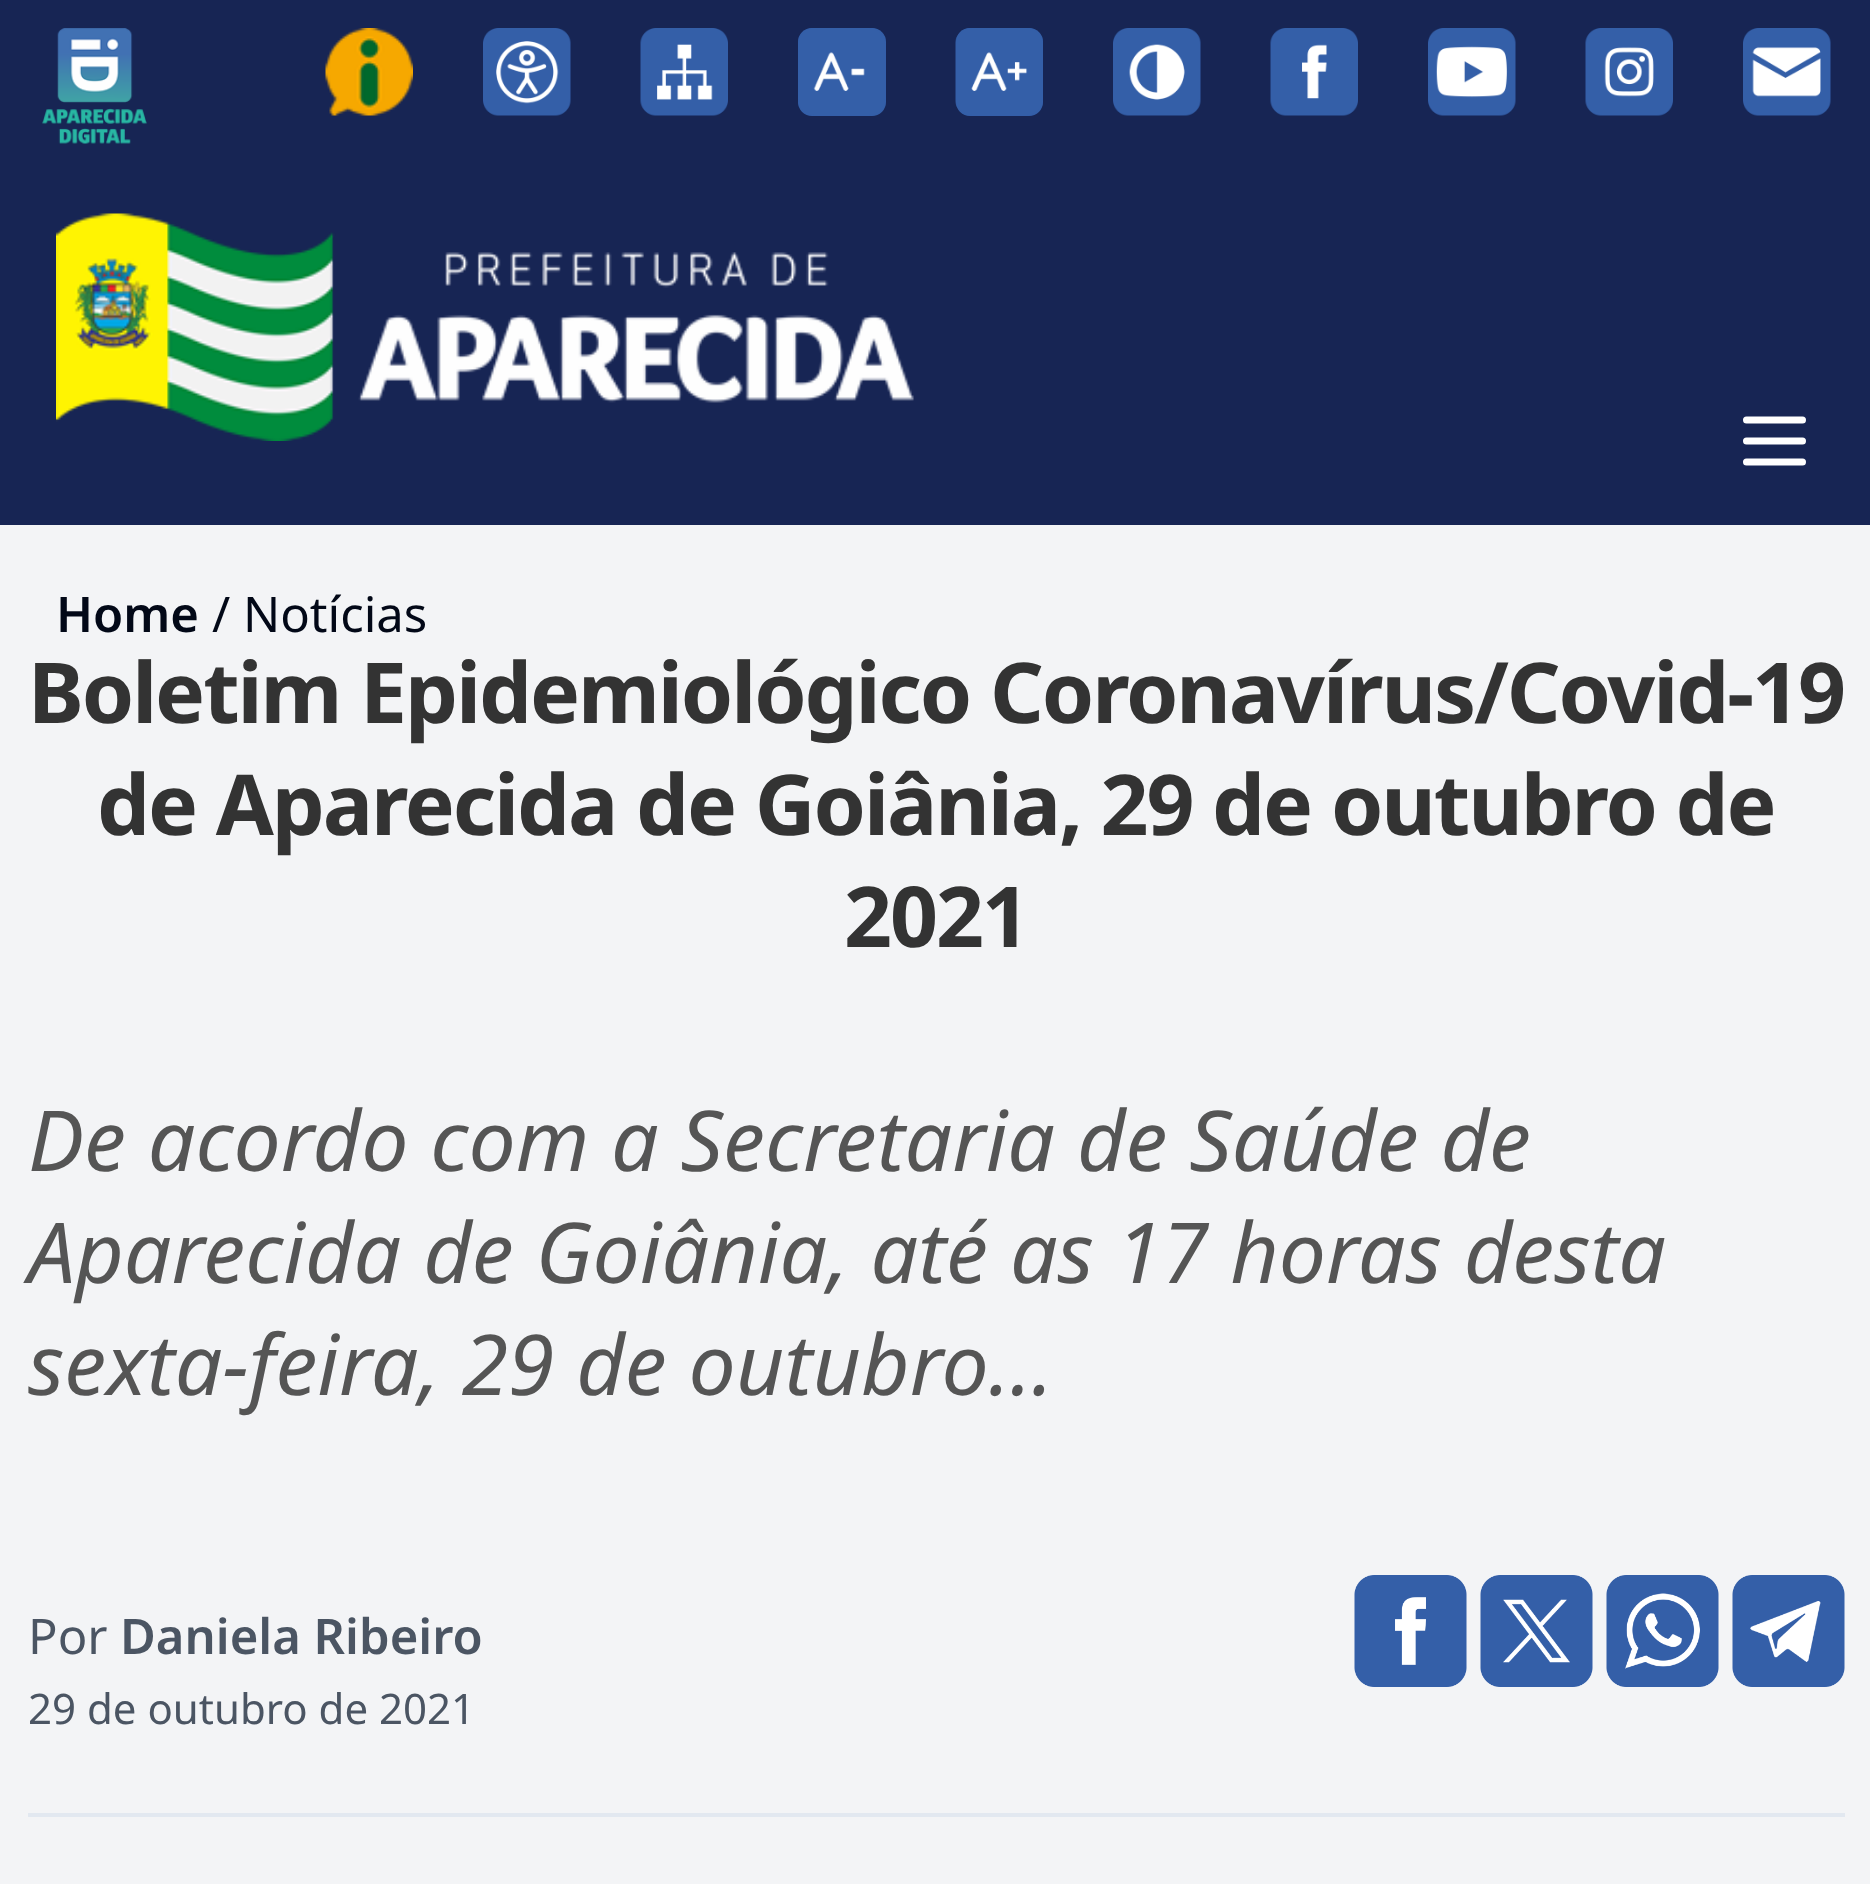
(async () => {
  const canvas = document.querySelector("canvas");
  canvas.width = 1870;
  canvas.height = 1884;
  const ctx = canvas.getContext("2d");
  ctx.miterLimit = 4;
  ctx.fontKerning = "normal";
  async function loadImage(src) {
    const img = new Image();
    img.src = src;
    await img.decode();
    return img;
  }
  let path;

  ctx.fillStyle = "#172554";
  ctx.fillRect(0, 0, 1870, 1884);
  ctx.drawImage(await loadImage("img/1.png"), 42, 28, 105, 116);
  ctx.drawImage(await loadImage("img/2.png"), 325, 28, 88, 88);
  ctx.drawImage(await loadImage("img/3.png"), 483, 28, 88, 88);
  ctx.drawImage(await loadImage("img/4.png"), 640, 28, 88, 88);
  ctx.fillStyle = "#345fa8";
  ctx.beginPath();
  ctx.roundRect(798, 28, 88, 88, 14);
  ctx.fill();
  ctx.drawImage(await loadImage("img/5.png"), 798, 28, 88, 88);
  ctx.beginPath();
  ctx.roundRect(956, 28, 87, 88, 14);
  ctx.fill();
  ctx.drawImage(await loadImage("img/6.png"), 955, 28, 88, 88);
  ctx.drawImage(await loadImage("img/7.png"), 1113, 28, 88, 88);
  ctx.drawImage(await loadImage("img/8.png"), 1270, 28, 88, 88);
  ctx.drawImage(await loadImage("img/9.png"), 1428, 28, 88, 88);
  ctx.drawImage(await loadImage("img/10.png"), 1585, 28, 88, 88);
  ctx.drawImage(await loadImage("img/11.png"), 1743, 28, 88, 88);
  ctx.drawImage(await loadImage("img/12.png"), 56, 213, 858, 228);
  path = new Path2D("M1746.5 420H1802.5M1746.5 441H1802.5M1746.5 462H1802.5");
  ctx.strokeStyle = "#ffffff";
  ctx.lineWidth = 7;
  ctx.lineCap = "round";
  ctx.lineJoin = "round";
  ctx.stroke(path);
  ctx.fillStyle = "#f3f4f6";
  ctx.fillRect(0, 525, 1870, 1359);
  ctx.drawImage(await loadImage("img/13.png"), 1354, 1575, 113, 112);
  ctx.drawImage(await loadImage("img/14.png"), 1480, 1575, 113, 112);
  ctx.drawImage(await loadImage("img/15.png"), 1606, 1575, 113, 112);
  ctx.drawImage(await loadImage("img/16.png"), 1732, 1575, 113, 112);
  ctx.fillStyle = "#e2e8f0";
  ctx.fillRect(28, 1813, 1817, 4);
  ctx.font = "600 49px Noto Sans";
  ctx.fillStyle = "#020817";
  ctx.fillText("Home", 56, 632);
  ctx.font = "49px Noto Sans";
  ctx.fillText("/ Notícias", 212, 632);
  ctx.letterSpacing = "-2.1px";
  ctx.font = "bold 84px Noto Sans";
  ctx.fillStyle = "#333333";
  for (const [text, x, y] of [
    ["Boletim Epidemiológico Coronavírus/Covid-19", 28, 723],
    ["de Aparecida de Goiânia, 29 de outubro de", 97, 835],
    ["2021", 844, 947],
  ]) {
    ctx.fillText(text, x, y);
  }
  ctx.letterSpacing = "0px";
  ctx.font = "italic 84px Noto Sans";
  ctx.fillStyle = "#555555";
  for (const [text, x, y] of [
    ["De acordo com a Secretaria de Saúde de", 28, 1171],
    ["Aparecida de Goiânia, até as 17 horas desta", 28, 1283],
    ["sexta-feira, 29 de outubro…", 28, 1395],
  ]) {
    ctx.fillText(text, x, y);
  }
  ctx.font = "49px Noto Sans";
  ctx.fillStyle = "#4b5563";
  ctx.fillText("Por", 28, 1654);
  ctx.font = "600 49px Noto Sans";
  ctx.fillText("Daniela Ribeiro", 120, 1654);
  ctx.font = "42px Noto Sans";
  ctx.fillText("29 de outubro de 2021", 28, 1724);
})();
